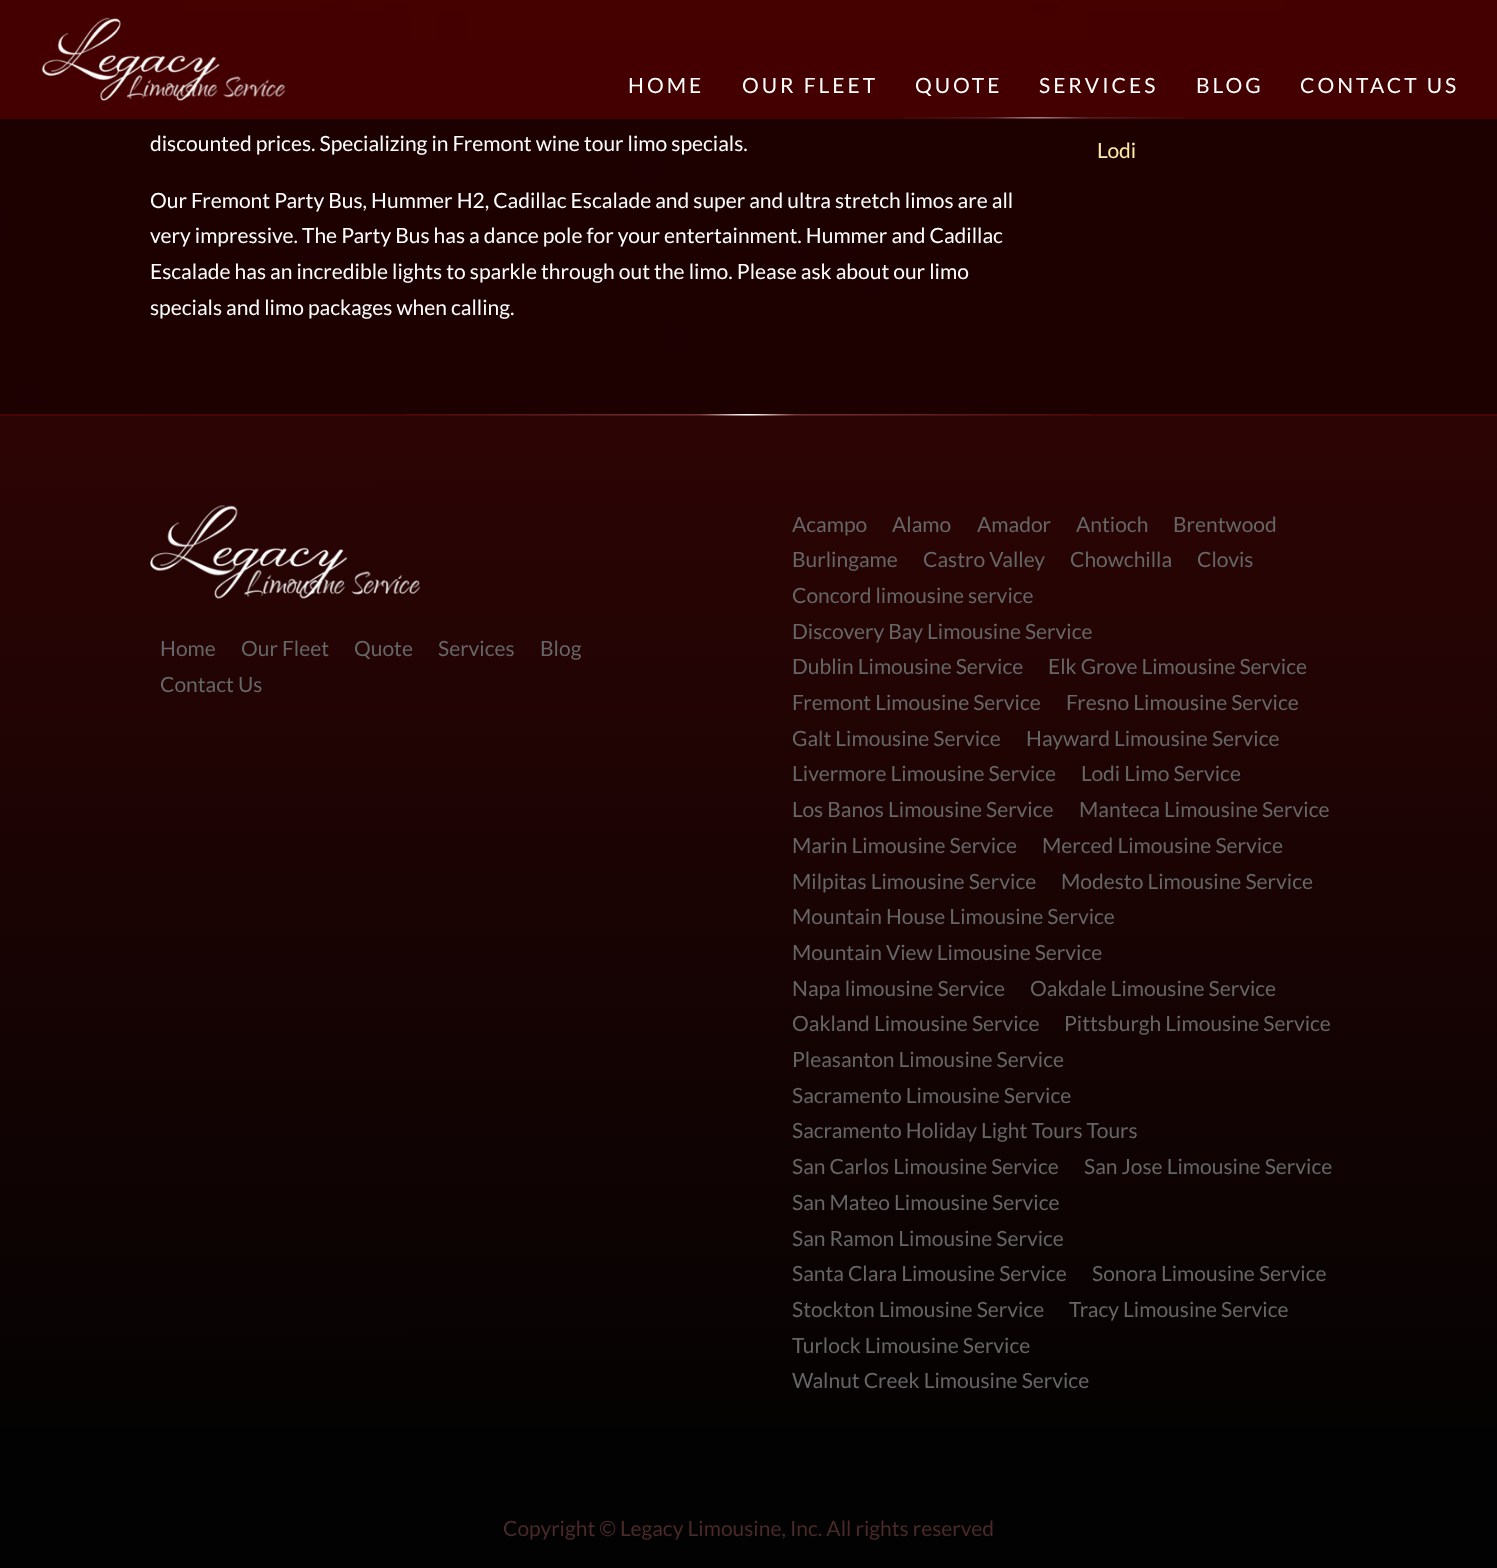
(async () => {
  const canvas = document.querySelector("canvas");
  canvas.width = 1497;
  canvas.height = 1568;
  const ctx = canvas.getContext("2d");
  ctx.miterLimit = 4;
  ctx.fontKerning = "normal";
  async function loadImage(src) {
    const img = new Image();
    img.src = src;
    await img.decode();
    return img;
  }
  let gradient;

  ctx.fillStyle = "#020202";
  ctx.fillRect(0, 0, 1497, 1568);
  ctx.drawImage(await loadImage("img/3.png"), 0, 0, 1497, 414);
  ctx.fillStyle = "rgba(73, 0, 0, 0.9)";
  ctx.fillRect(0, 0, 1497, 119);
  ctx.drawImage(await loadImage("img/1.png"), 41, 17, 245, 84);
  ctx.drawImage(await loadImage("img/2.png"), 904, 117, 280, 2);
  gradient = ctx.createLinearGradient(748, 415, 749, 1488);
  gradient.addColorStop(0, "#2d0404");
  gradient.addColorStop(1, "#020202");
  ctx.fillStyle = gradient;
  ctx.fillRect(0, 416, 1497, 1010);
  ctx.fillStyle = "#470404";
  ctx.fillRect(0, 414, 1497, 2);
  ctx.drawImage(await loadImage("img/4.png"), 407, 414, 683, 2);
  ctx.drawImage(await loadImage("img/5.png"), 150, 505, 270, 94);
  ctx.letterSpacing = "3px";
  ctx.font = "21px Lato";
  ctx.fillStyle = "#ffffff";
  for (const [text, x, y] of [
    ["HOME", 628, 93],
    ["OUR FLEET", 742, 93],
    ["QUOTE", 915, 93],
    ["SERVICES", 1039, 93],
    ["BLOG", 1196, 93],
    ["CONTACT US", 1300, 93],
  ]) {
    ctx.fillText(text, x, y);
  }
  ctx.letterSpacing = "0px";
  for (const [text, x, y] of [
    ["discounted prices. Specializing in Fremont wine tour limo specials.", 150, 151],
    ["Our Fremont Party Bus, Hummer H2, Cadillac Escalade and super and ultra stretch limos are all", 150, 208],
    ["very impressive. The Party Bus has a dance pole for your entertainment. Hummer and Cadillac", 150, 243],
    ["Escalade has an incredible lights to sparkle through out the limo. Please ask about our limo", 150, 279],
    ["specials and limo packages when calling.", 150, 315],
  ]) {
    ctx.fillText(text, x, y);
  }
  ctx.fillStyle = "#ffeba6";
  ctx.fillText("Lodi", 1097, 158);
  ctx.fillStyle = "#666666";
  for (const [text, x, y] of [
    ["Home", 160, 656],
    ["Our Fleet", 241, 656],
    ["Quote", 354, 656],
    ["Services", 438, 656],
    ["Blog", 540, 656],
    ["Contact Us", 160, 692],
    ["Acampo", 792, 532],
    ["Alamo", 892, 532],
    ["Amador", 977, 532],
    ["Antioch", 1076, 532],
    ["Brentwood", 1173, 532],
    ["Burlingame", 792, 567],
    ["Castro Valley", 923, 567],
    ["Chowchilla", 1070, 567],
    ["Clovis", 1197, 567],
    ["Concord limousine service", 792, 603],
    ["Discovery Bay Limousine Service", 792, 639],
    ["Dublin Limousine Service", 792, 674],
    ["Elk Grove Limousine Service", 1048, 674],
    ["Fremont Limousine Service", 792, 710],
    ["Fresno Limousine Service", 1066, 710],
    ["Galt Limousine Service", 792, 746],
    ["Hayward Limousine Service", 1026, 746],
    ["Livermore Limousine Service", 792, 781],
    ["Lodi Limo Service", 1081, 781],
    ["Los Banos Limousine Service", 792, 817],
    ["Manteca Limousine Service", 1079, 817],
    ["Marin Limousine Service", 792, 853],
    ["Merced Limousine Service", 1042, 853],
    ["Milpitas Limousine Service", 792, 889],
    ["Modesto Limousine Service", 1061, 889],
    ["Mountain House Limousine Service", 792, 924],
    ["Mountain View Limousine Service", 792, 960],
    ["Napa limousine Service", 792, 996],
    ["Oakdale Limousine Service", 1030, 996],
    ["Oakland Limousine Service", 792, 1031],
    ["Pittsburgh Limousine Service", 1064, 1031],
    ["Pleasanton Limousine Service", 792, 1067],
    ["Sacramento Limousine Service", 792, 1103],
    ["Sacramento Holiday Light Tours Tours", 792, 1138],
    ["San Carlos Limousine Service", 792, 1174],
    ["San Jose Limousine Service", 1084, 1174],
    ["San Mateo Limousine Service", 792, 1210],
    ["San Ramon Limousine Service", 792, 1246],
    ["Santa Clara Limousine Service", 792, 1281],
    ["Sonora Limousine Service", 1092, 1281],
    ["Stockton Limousine Service", 792, 1317],
    ["Tracy Limousine Service", 1069, 1317],
    ["Turlock Limousine Service", 792, 1353],
    ["Walnut Creek Limousine Service", 792, 1388],
  ]) {
    ctx.fillText(text, x, y);
  }
  ctx.fillStyle = "#4a2929";
  ctx.fillText("Copyright © Legacy Limousine, Inc. All rights reserved", 503, 1536);
})();
